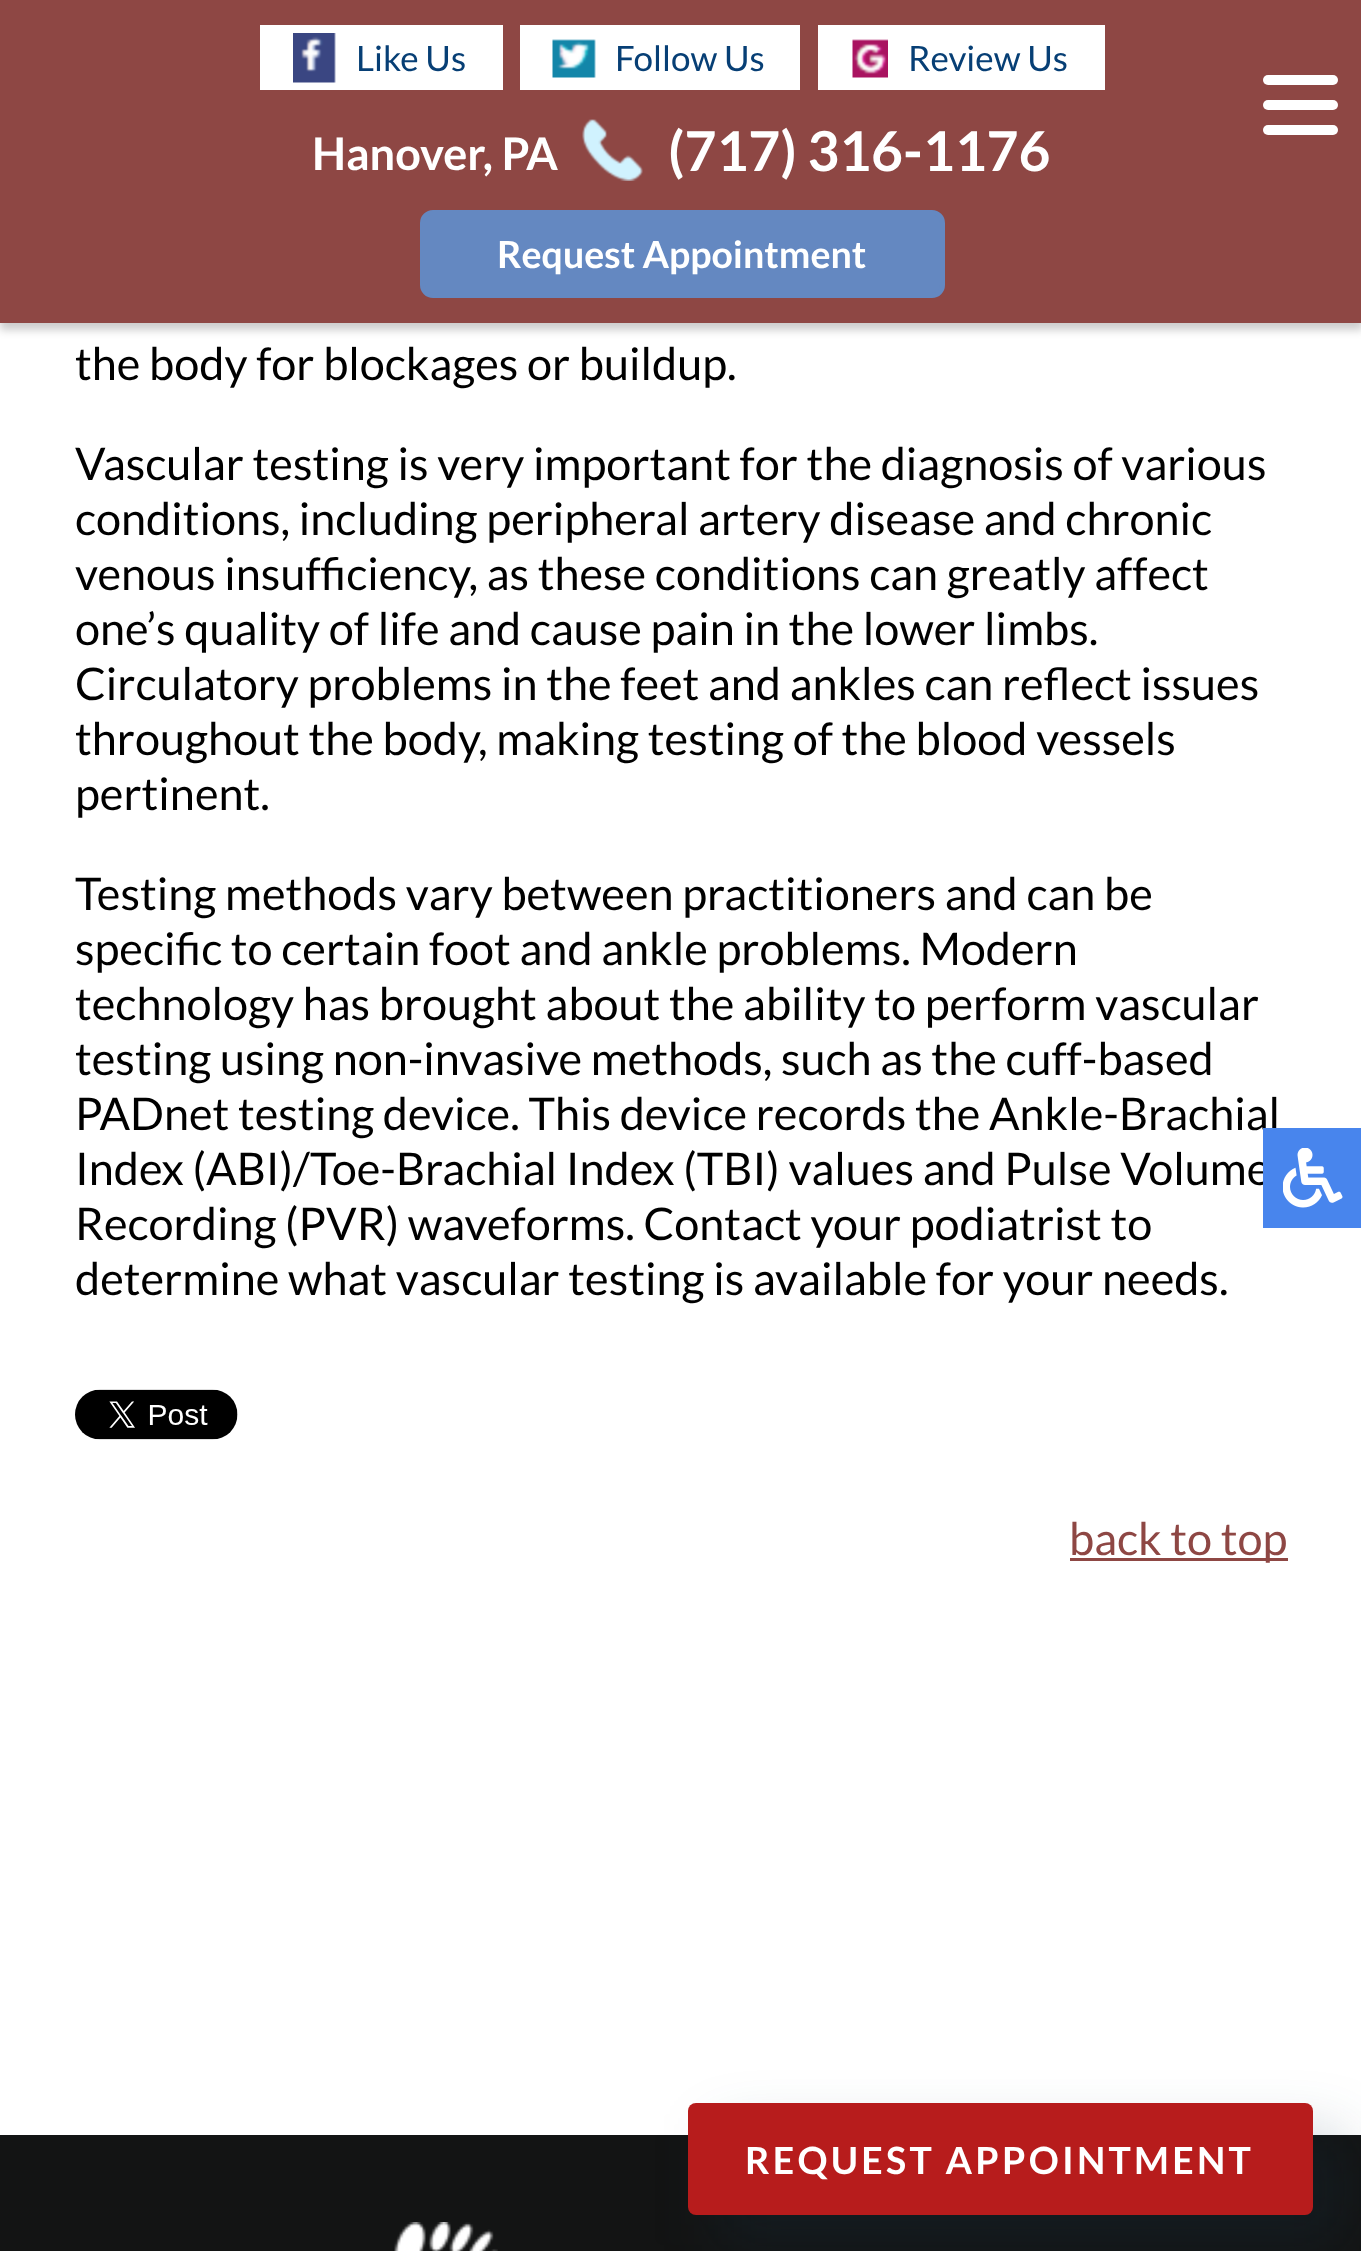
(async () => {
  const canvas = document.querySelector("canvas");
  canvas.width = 1361;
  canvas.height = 2251;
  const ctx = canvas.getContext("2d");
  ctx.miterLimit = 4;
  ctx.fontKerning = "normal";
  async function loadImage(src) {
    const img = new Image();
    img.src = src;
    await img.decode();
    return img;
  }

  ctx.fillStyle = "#ffffff";
  ctx.fillRect(0, 0, 1361, 2251);
  ctx.fillStyle = "rgba(0, 0, 0, 0.2)";
  ctx.filter = "blur(4px)";
  ctx.beginPath();
  ctx.rect(0, 8, 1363, 322);
  ctx.fill();
  ctx.filter = "none";
  ctx.fillStyle = "#8e4744";
  ctx.fillRect(0, 0, 1361, 323);
  ctx.fillStyle = "#ffffff";
  ctx.fillRect(260, 25, 243, 65);
  ctx.drawImage(await loadImage("img/1.png"), 293, 33, 43, 50);
  ctx.fillRect(520, 25, 280, 65);
  ctx.drawImage(await loadImage("img/2.png"), 552, 39, 44, 39);
  ctx.fillRect(818, 25, 287, 65);
  ctx.drawImage(await loadImage("img/3.png"), 852, 39, 36, 39);
  ctx.drawImage(await loadImage("img/4.png"), 582, 119, 61, 62);
  ctx.fillStyle = "#6488c1";
  ctx.beginPath();
  ctx.roundRect(422.5, 212.5, 520, 83, 10.5);
  ctx.fill();
  ctx.strokeStyle = "#6488c1";
  ctx.lineWidth = 5;
  ctx.stroke();
  ctx.fillStyle = "#ffffff";
  ctx.beginPath();
  ctx.roundRect(1263, 75, 75, 10, 5);
  ctx.fill();
  ctx.beginPath();
  ctx.roundRect(1263, 100, 75, 10, 5);
  ctx.fill();
  ctx.beginPath();
  ctx.roundRect(1263, 125, 75, 10, 5);
  ctx.fill();
  ctx.drawImage(await loadImage("img/5.png"), 75, 1389, 163, 51);
  ctx.fillStyle = "#8e4744";
  ctx.fillRect(1070, 1558, 218, 3);
  ctx.fillStyle = "#131414";
  ctx.fillRect(0, 2135, 1361, 116);
  ctx.drawImage(await loadImage("img/7.png"), 394, 2222, 104, 29);
  ctx.fillStyle = "rgba(25, 54, 78, 0.22)";
  ctx.filter = "blur(30px)";
  ctx.beginPath();
  ctx.roundRect(718, 2133, 625, 112, 8);
  ctx.fill();
  ctx.filter = "none";
  ctx.fillStyle = "#b71c1c";
  ctx.beginPath();
  ctx.roundRect(688, 2103, 625, 112, 8);
  ctx.fill();
  ctx.font = "35px Lato";
  ctx.fillStyle = "#073f75";
  for (const [text, x, y] of [
    ["Like Us", 356, 71],
    ["Follow Us", 615, 71],
    ["Review Us", 908, 71],
  ]) {
    ctx.fillText(text, x, y);
  }
  ctx.font = "bold 45px Lato";
  ctx.fillStyle = "#ffffff";
  ctx.fillText("Hanover, PA", 312, 170);
  ctx.font = "bold 55px Lato";
  ctx.fillText("(717) 316-1176", 668, 171);
  ctx.font = "bold 37.5px Lato";
  ctx.fillText("Request Appointment", 497, 268);
  ctx.font = "45px Lato";
  ctx.fillStyle = "#000000";
  for (const [text, x, y] of [
    ["the body for blockages or buildup.", 75, 380],
    ["Vascular testing is very important for the diagnosis of various", 75, 480],
    ["conditions, including peripheral artery disease and chronic", 75, 535],
    ["venous insufficiency, as these conditions can greatly affect", 75, 590],
    ["one’s quality of life and cause pain in the lower limbs.", 75, 645],
    ["Circulatory problems in the feet and ankles can reflect issues", 75, 700],
    ["throughout the body, making testing of the blood vessels", 75, 755],
    ["pertinent.", 75, 810],
    ["Testing methods vary between practitioners and can be", 75, 910],
    ["specific to certain foot and ankle problems. Modern", 75, 965],
    ["technology has brought about the ability to perform vascular", 75, 1020],
    ["testing using non-invasive methods, such as the cuff-based", 75, 1075],
    ["PADnet testing device. This device records the Ankle-Brachial", 75, 1130],
    ["Index (ABI)/Toe-Brachial Index (TBI) values and Pulse Volume", 75, 1185],
    ["Recording (PVR) waveforms. Contact your podiatrist to", 75, 1240],
    ["determine what vascular testing is available for your needs.", 75, 1295],
  ]) {
    ctx.fillText(text, x, y);
  }
  ctx.fillStyle = "#8e4744";
  ctx.fillText("back to top", 1069, 1555);
  ctx.fillStyle = "#4885ed";
  ctx.fillRect(1263, 1128, 98, 100);
  ctx.drawImage(await loadImage("img/6.png"), 1283, 1148, 60, 60);
  ctx.letterSpacing = "3.25px";
  ctx.font = "bold 37.5px Lato";
  ctx.fillStyle = "#ffffff";
  ctx.fillText("REQUEST APPOINTMENT", 745, 2174);
})();
